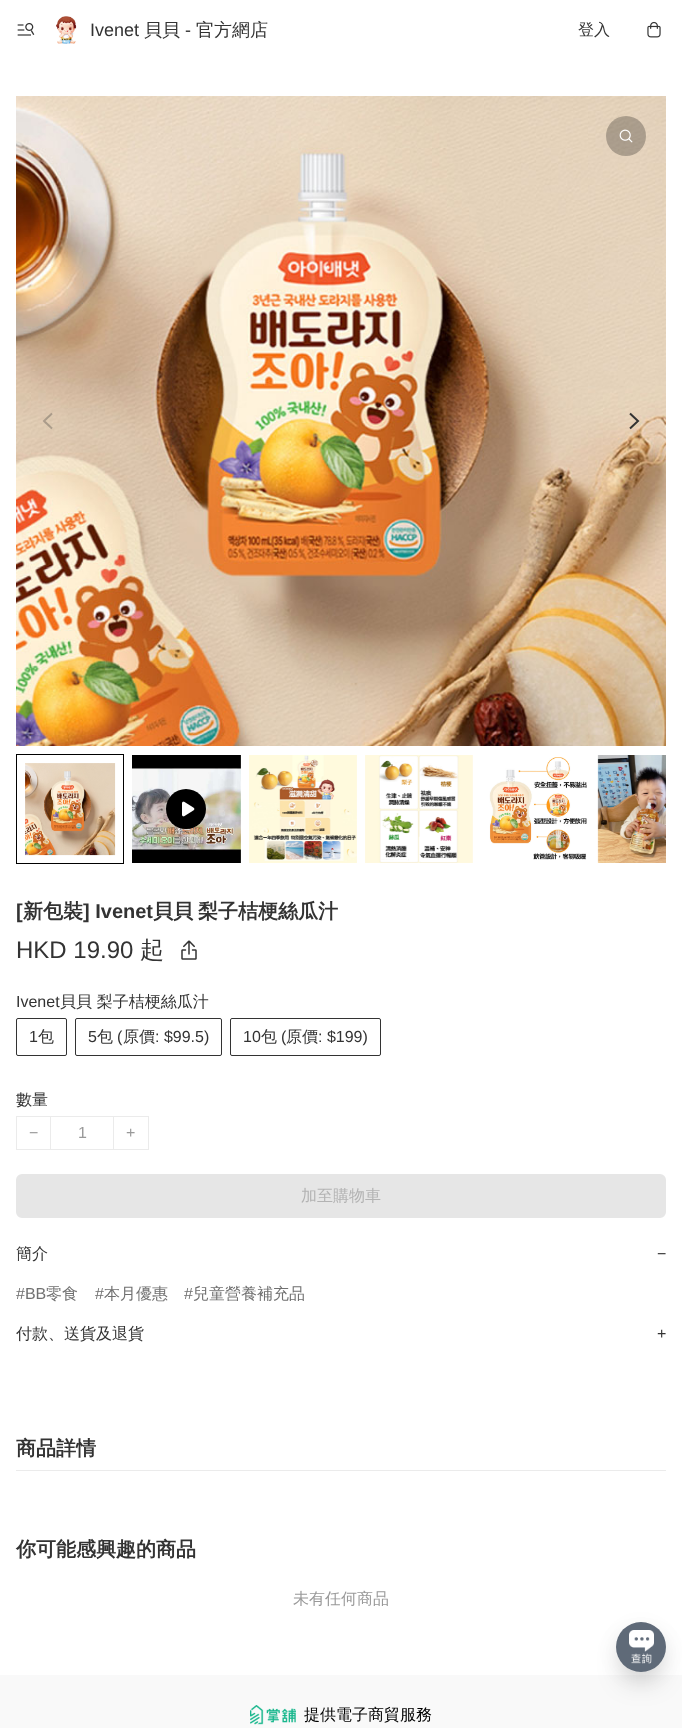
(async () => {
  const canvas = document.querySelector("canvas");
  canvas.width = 682;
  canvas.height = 1728;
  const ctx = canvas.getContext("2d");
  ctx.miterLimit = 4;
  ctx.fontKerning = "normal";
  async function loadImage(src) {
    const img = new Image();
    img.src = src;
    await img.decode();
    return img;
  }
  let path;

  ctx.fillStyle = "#ffffff";
  ctx.fillRect(0, 0, 682, 1728);
  ctx.drawImage(await loadImage("img/1.png"), 17, 22, 18, 14);
  ctx.drawImage(await loadImage("img/2.png"), 56, 16, 21, 28);
  ctx.drawImage(await loadImage("img/3.png"), 647, 21, 14, 17);
  ctx.drawImage(await loadImage("img/4.png"), 16, 96, 650, 650);
  ctx.fillStyle = "rgba(0, 0, 0, 0.25)";
  ctx.beginPath();
  ctx.arc(626, 136, 20, 0, Math.PI * 2);
  ctx.fill();
  ctx.drawImage(await loadImage("img/5.png"), 619, 129, 14, 14);
  path = new Path2D("M52 413.5L44 421L52 428.5");
  ctx.strokeStyle = "rgba(51, 51, 51, 0.3)";
  ctx.lineWidth = 2;
  ctx.stroke(path);
  path = new Path2D("M630 413.5L638 421L630 428.5");
  ctx.strokeStyle = "#333333";
  ctx.stroke(path);
  ctx.strokeStyle = "#000000";
  ctx.lineWidth = 1;
  ctx.strokeRect(16.5, 754.5, 107, 109);
  ctx.drawImage(await loadImage("img/6.png"), 25, 763, 91, 93);
  ctx.drawImage(await loadImage("img/7.png"), 132, 755, 109, 108);
  ctx.fillStyle = "#000000";
  ctx.beginPath();
  ctx.arc(186, 809, 20, 0, Math.PI * 2);
  ctx.fill();
  ctx.drawImage(await loadImage("img/8.png"), 182, 801, 13, 16);
  ctx.drawImage(await loadImage("img/9.png"), 249, 755, 108, 108);
  ctx.drawImage(await loadImage("img/10.png"), 365, 755, 108, 108);
  ctx.drawImage(await loadImage("img/11.png"), 489, 757, 98, 103);
  ctx.drawImage(await loadImage("img/12.png"), 597, 755, 69, 108);
  ctx.drawImage(await loadImage("img/13.png"), 181, 940, 16, 20);
  ctx.beginPath();
  ctx.roundRect(16.5, 1018.5, 50, 37, 1.5);
  ctx.strokeStyle = "#333333";
  ctx.stroke();
  ctx.beginPath();
  ctx.roundRect(75.5, 1018.5, 146, 37, 1.5);
  ctx.stroke();
  ctx.beginPath();
  ctx.roundRect(230.5, 1018.5, 150, 37, 1.5);
  ctx.stroke();
  ctx.strokeStyle = "#ebebeb";
  ctx.strokeRect(16.5, 1116.5, 132, 33);
  ctx.fillStyle = "#ebebeb";
  ctx.fillRect(113, 1117, 1, 32);
  ctx.fillRect(50, 1117, 1, 32);
  ctx.fillStyle = "#e6e6e6";
  ctx.beginPath();
  ctx.roundRect(17, 1175, 648, 42, 5);
  ctx.fill();
  ctx.strokeStyle = "#e6e6e6";
  ctx.lineWidth = 2;
  ctx.stroke();
  ctx.fillStyle = "#ebebeb";
  ctx.fillRect(16, 1470, 650, 1);
  ctx.fillStyle = "#f9f9f9";
  ctx.fillRect(0, 1675, 682, 53);
  ctx.drawImage(await loadImage("img/14.png"), 250, 1705, 46, 20);
  ctx.fillStyle = "rgba(0, 0, 0, 0.3)";
  ctx.filter = "blur(15px)";
  ctx.beginPath();
  ctx.roundRect(626, 1647, 30, 30, 15);
  ctx.fill();
  ctx.filter = "none";
  ctx.fillStyle = "rgba(0, 0, 0, 0.05)";
  ctx.filter = "blur(10px)";
  ctx.beginPath();
  ctx.roundRect(616, 1627, 50, 50, 25);
  ctx.fill();
  ctx.filter = "none";
  ctx.fillStyle = "#5f6a78";
  ctx.beginPath();
  ctx.arc(641, 1647, 25, 0, Math.PI * 2);
  ctx.fill();
  ctx.drawImage(await loadImage("img/15.png"), 629, 1630, 25, 34);
  ctx.font = "18px Liberation Sans";
  ctx.fillStyle = "#333333";
  ctx.fillText("Ivenet", 90, 36);
  ctx.font = "500 18px WenQuanYi Zen Hei";
  ctx.fillText("貝貝", 144, 36);
  ctx.font = "18px Liberation Sans";
  ctx.fillText("-", 185, 36);
  ctx.font = "500 18px WenQuanYi Zen Hei";
  ctx.fillText("官方網店", 196, 36);
  ctx.font = "500 16px WenQuanYi Zen Hei";
  ctx.fillText("登入", 578, 35);
  ctx.font = "bold 20px Liberation Sans";
  ctx.fillText("[", 16, 918);
  ctx.font = "bold 20px WenQuanYi Zen Hei";
  ctx.fillText("新包裝", 23, 918);
  ctx.font = "bold 20px Liberation Sans";
  ctx.fillText("] Ivenet", 83, 918);
  ctx.font = "bold 20px WenQuanYi Zen Hei";
  ctx.fillText("貝貝", 153, 918);
  ctx.fillText("梨子桔梗絲瓜汁", 198, 918);
  ctx.font = "24px Liberation Sans";
  ctx.fillText("HKD 19.90", 16, 958);
  ctx.font = "500 24px WenQuanYi Zen Hei";
  ctx.fillText("起", 140, 958);
  ctx.font = "16px Liberation Sans";
  ctx.fillText("Ivenet", 16, 1007);
  ctx.font = "500 16px WenQuanYi Zen Hei";
  ctx.fillText("貝貝 梨子桔梗絲瓜汁", 60, 1007);
  ctx.font = "16px Liberation Sans";
  ctx.fillText("1", 29, 1042);
  ctx.font = "500 16px WenQuanYi Zen Hei";
  ctx.fillText("包", 38, 1042);
  ctx.font = "16px Liberation Sans";
  ctx.fillText("5", 88, 1042);
  ctx.font = "500 16px WenQuanYi Zen Hei";
  ctx.fillText("包", 97, 1042);
  ctx.font = "16px Liberation Sans";
  ctx.fillText("(", 117, 1042);
  ctx.font = "500 16px WenQuanYi Zen Hei";
  ctx.fillText("原價", 123, 1042);
  ctx.font = "16px Liberation Sans";
  ctx.fillText(": $99.5)", 155, 1042);
  ctx.fillText("10", 243, 1042);
  ctx.font = "500 16px WenQuanYi Zen Hei";
  ctx.fillText("包", 261, 1042);
  ctx.font = "16px Liberation Sans";
  ctx.fillText("(", 281, 1042);
  ctx.font = "500 16px WenQuanYi Zen Hei";
  ctx.fillText("原價", 286, 1042);
  ctx.font = "16px Liberation Sans";
  ctx.fillText(": $199)", 318, 1042);
  ctx.font = "500 16px WenQuanYi Zen Hei";
  ctx.fillText("數量", 16, 1105);
  ctx.font = "16px Liberation Sans";
  ctx.fillStyle = "#999999";
  for (const [text, x, y] of [
    ["−", 29, 1138],
    ["1", 78, 1138],
    ["+", 126, 1138],
  ]) {
    ctx.fillText(text, x, y);
  }
  ctx.font = "500 16px WenQuanYi Zen Hei";
  ctx.fillStyle = "#b3b3b3";
  ctx.fillText("加至購物車", 301, 1201);
  ctx.fillStyle = "#333333";
  ctx.fillText("簡介", 16, 1259);
  ctx.font = "16px Liberation Sans";
  ctx.fillText("−", 657, 1259);
  ctx.fillStyle = "#707070";
  ctx.fillText("#BB", 16, 1299);
  ctx.font = "500 16px WenQuanYi Zen Hei";
  ctx.fillText("零食", 46, 1299);
  ctx.font = "16px Liberation Sans";
  ctx.fillText("#", 95, 1299);
  ctx.font = "500 16px WenQuanYi Zen Hei";
  ctx.fillText("本月優惠", 104, 1299);
  ctx.font = "16px Liberation Sans";
  ctx.fillText("#", 184, 1299);
  ctx.font = "500 16px WenQuanYi Zen Hei";
  ctx.fillText("兒童營養補充品", 193, 1299);
  ctx.fillStyle = "#333333";
  ctx.fillText("付款、送貨及退貨", 16, 1339);
  ctx.font = "16px Liberation Sans";
  ctx.fillText("+", 657, 1339);
  ctx.font = "bold 20px WenQuanYi Zen Hei";
  ctx.fillText("商品詳情", 16, 1455);
  ctx.fillText("你可能感興趣的商品", 16, 1556);
  ctx.font = "500 16px WenQuanYi Zen Hei";
  ctx.fillStyle = "#999999";
  ctx.fillText("未有任何商品", 293, 1604);
  ctx.fillStyle = "#000000";
  ctx.fillText("提供電子商貿服務", 304, 1720);
})();
